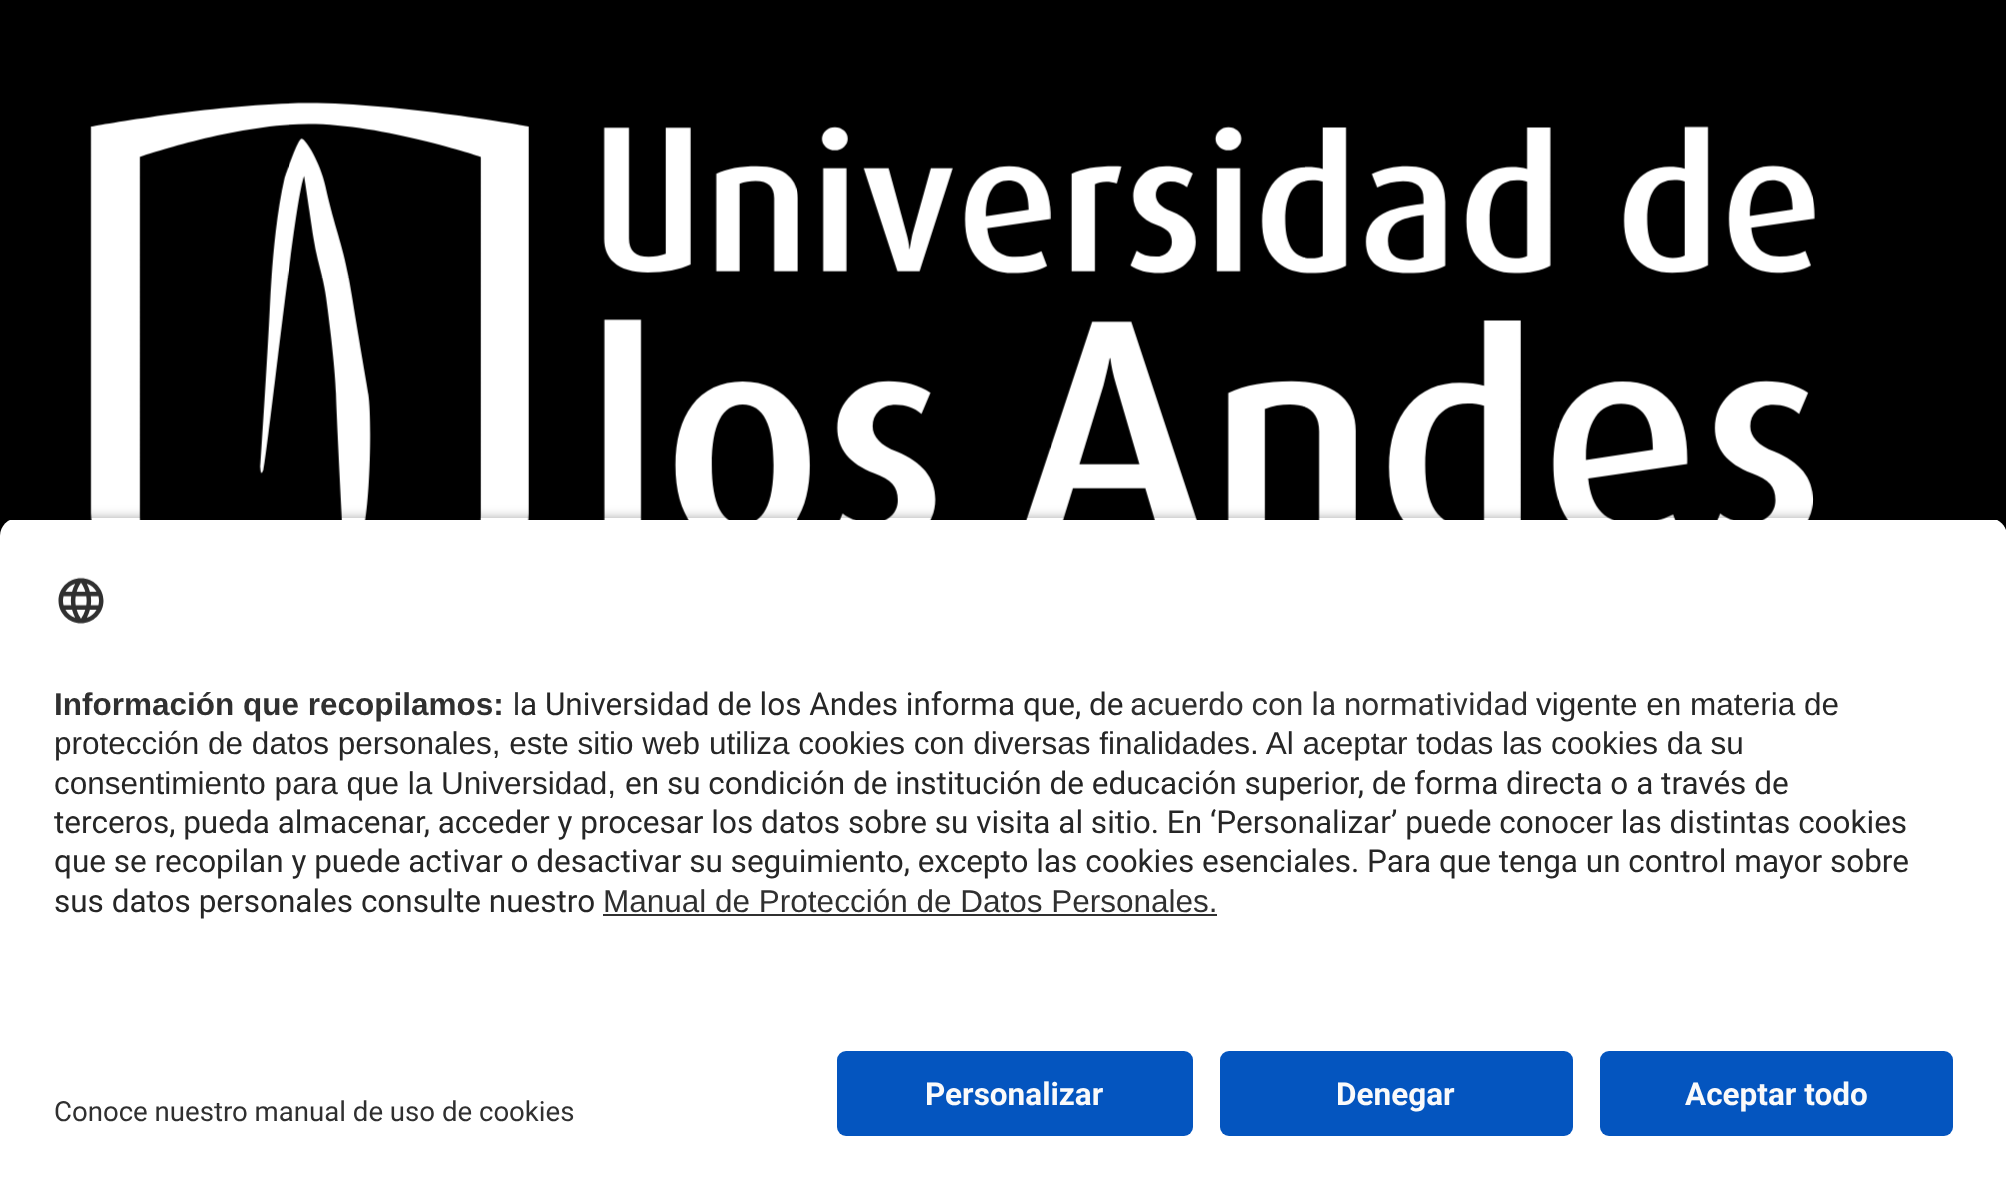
(async () => {
  const canvas = document.querySelector("canvas");
  canvas.width = 2006;
  canvas.height = 1189;
  const ctx = canvas.getContext("2d");
  ctx.miterLimit = 4;
  ctx.fontKerning = "normal";
  async function loadImage(src) {
    const img = new Image();
    img.src = src;
    await img.decode();
    return img;
  }
  let path;

  ctx.fillStyle = "#000000";
  ctx.fillRect(0, 0, 2006, 1189);
  ctx.drawImage(await loadImage("img/1.png"), 90, 102, 1725, 418);
  ctx.save();
  path = new Path2D("M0 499H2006V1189H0ZM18 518H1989C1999 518 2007 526 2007 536V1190H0V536C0 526 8 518 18 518Z");
  ctx.clip(path, "evenodd");
  ctx.fillStyle = "rgba(0, 0, 0, 0.8)";
  ctx.filter = "blur(8px)";
  ctx.beginPath();
  ctx.roundRect(0, 524, 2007, 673, 18);
  ctx.fill();
  ctx.filter = "none";
  ctx.restore();
  ctx.save();
  path = new Path2D("M18 518H1989C1999 518 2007 526 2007 536V1033H0V536C0 526 8 518 18 518Z");
  ctx.clip(path);
  ctx.fillStyle = "#ffffff";
  ctx.fillRect(0, 520, 2006, 513);
  ctx.restore();
  ctx.drawImage(await loadImage("img/2.png"), 58, 577, 46, 47);
  ctx.fillStyle = "#303030";
  ctx.fillRect(603, 914, 614, 2);
  ctx.fillStyle = "#ffffff";
  ctx.fillRect(0, 1033, 2006, 156);
  ctx.fillStyle = "#0455bf";
  ctx.beginPath();
  ctx.roundRect(837, 1051, 356, 85, 9);
  ctx.fill();
  ctx.beginPath();
  ctx.roundRect(1220, 1051, 353, 85, 9);
  ctx.fill();
  ctx.beginPath();
  ctx.roundRect(1600, 1051, 353, 85, 9);
  ctx.fill();
  ctx.font = "bold 31.5px Liberation Sans";
  ctx.fillStyle = "#303030";
  ctx.fillText("Información que recopilamos:", 54, 715);
  ctx.font = "31.5px Liberation Sans";
  ctx.fillText("l", 513, 715);
  ctx.font = "31.5px Roboto";
  ctx.fillStyle = "#262626";
  ctx.fillText("a Universidad de los Andes informa que, de", 520, 715);
  ctx.fillStyle = "#303030";
  ctx.fillText("acuerdo con la normatividad", 1130, 715);
  ctx.font = "31.5px Liberation Sans";
  ctx.fillStyle = "#262626";
  for (const [text, x, y] of [
    ["vigente en materia de", 1536, 715],
    ["protección de datos personales, este sitio web utiliza cookies con diversas finalidades. Al aceptar todas las cookies da su", 54, 754],
    ["consentimiento para que la Universidad,", 54, 794],
  ]) {
    ctx.fillText(text, x, y);
  }
  ctx.font = "31.5px Roboto";
  for (const [text, x, y] of [
    ["en su condición de institución de educación superior, de forma directa o a través de", 625, 794],
    ["terceros, pueda almacenar, acceder y procesar los datos sobre su visita al sitio. En ‘Personalizar’ puede conocer las distintas cookies", 54, 833],
    ["que se recopilan y puede activar o desactivar su seguimiento, excepto las cookies esenciales. Para que tenga un control mayor sobre", 54, 872],
    ["sus datos personales consulte nuestro", 54, 912],
  ]) {
    ctx.fillText(text, x, y);
  }
  ctx.font = "31.5px Liberation Sans";
  ctx.fillStyle = "#303030";
  ctx.fillText("Manual de Protección de Datos Personales.", 603, 912);
  ctx.font = "27.6px Roboto";
  ctx.fillText("Conoce nuestro manual de uso de cookies", 54, 1121);
  ctx.font = "bold 31.5px Roboto";
  ctx.fillStyle = "#fafafa";
  for (const [text, x, y] of [
    ["Personalizar", 925, 1105],
    ["Denegar", 1336, 1105],
    ["Aceptar todo", 1685, 1105],
  ]) {
    ctx.fillText(text, x, y);
  }
})();
